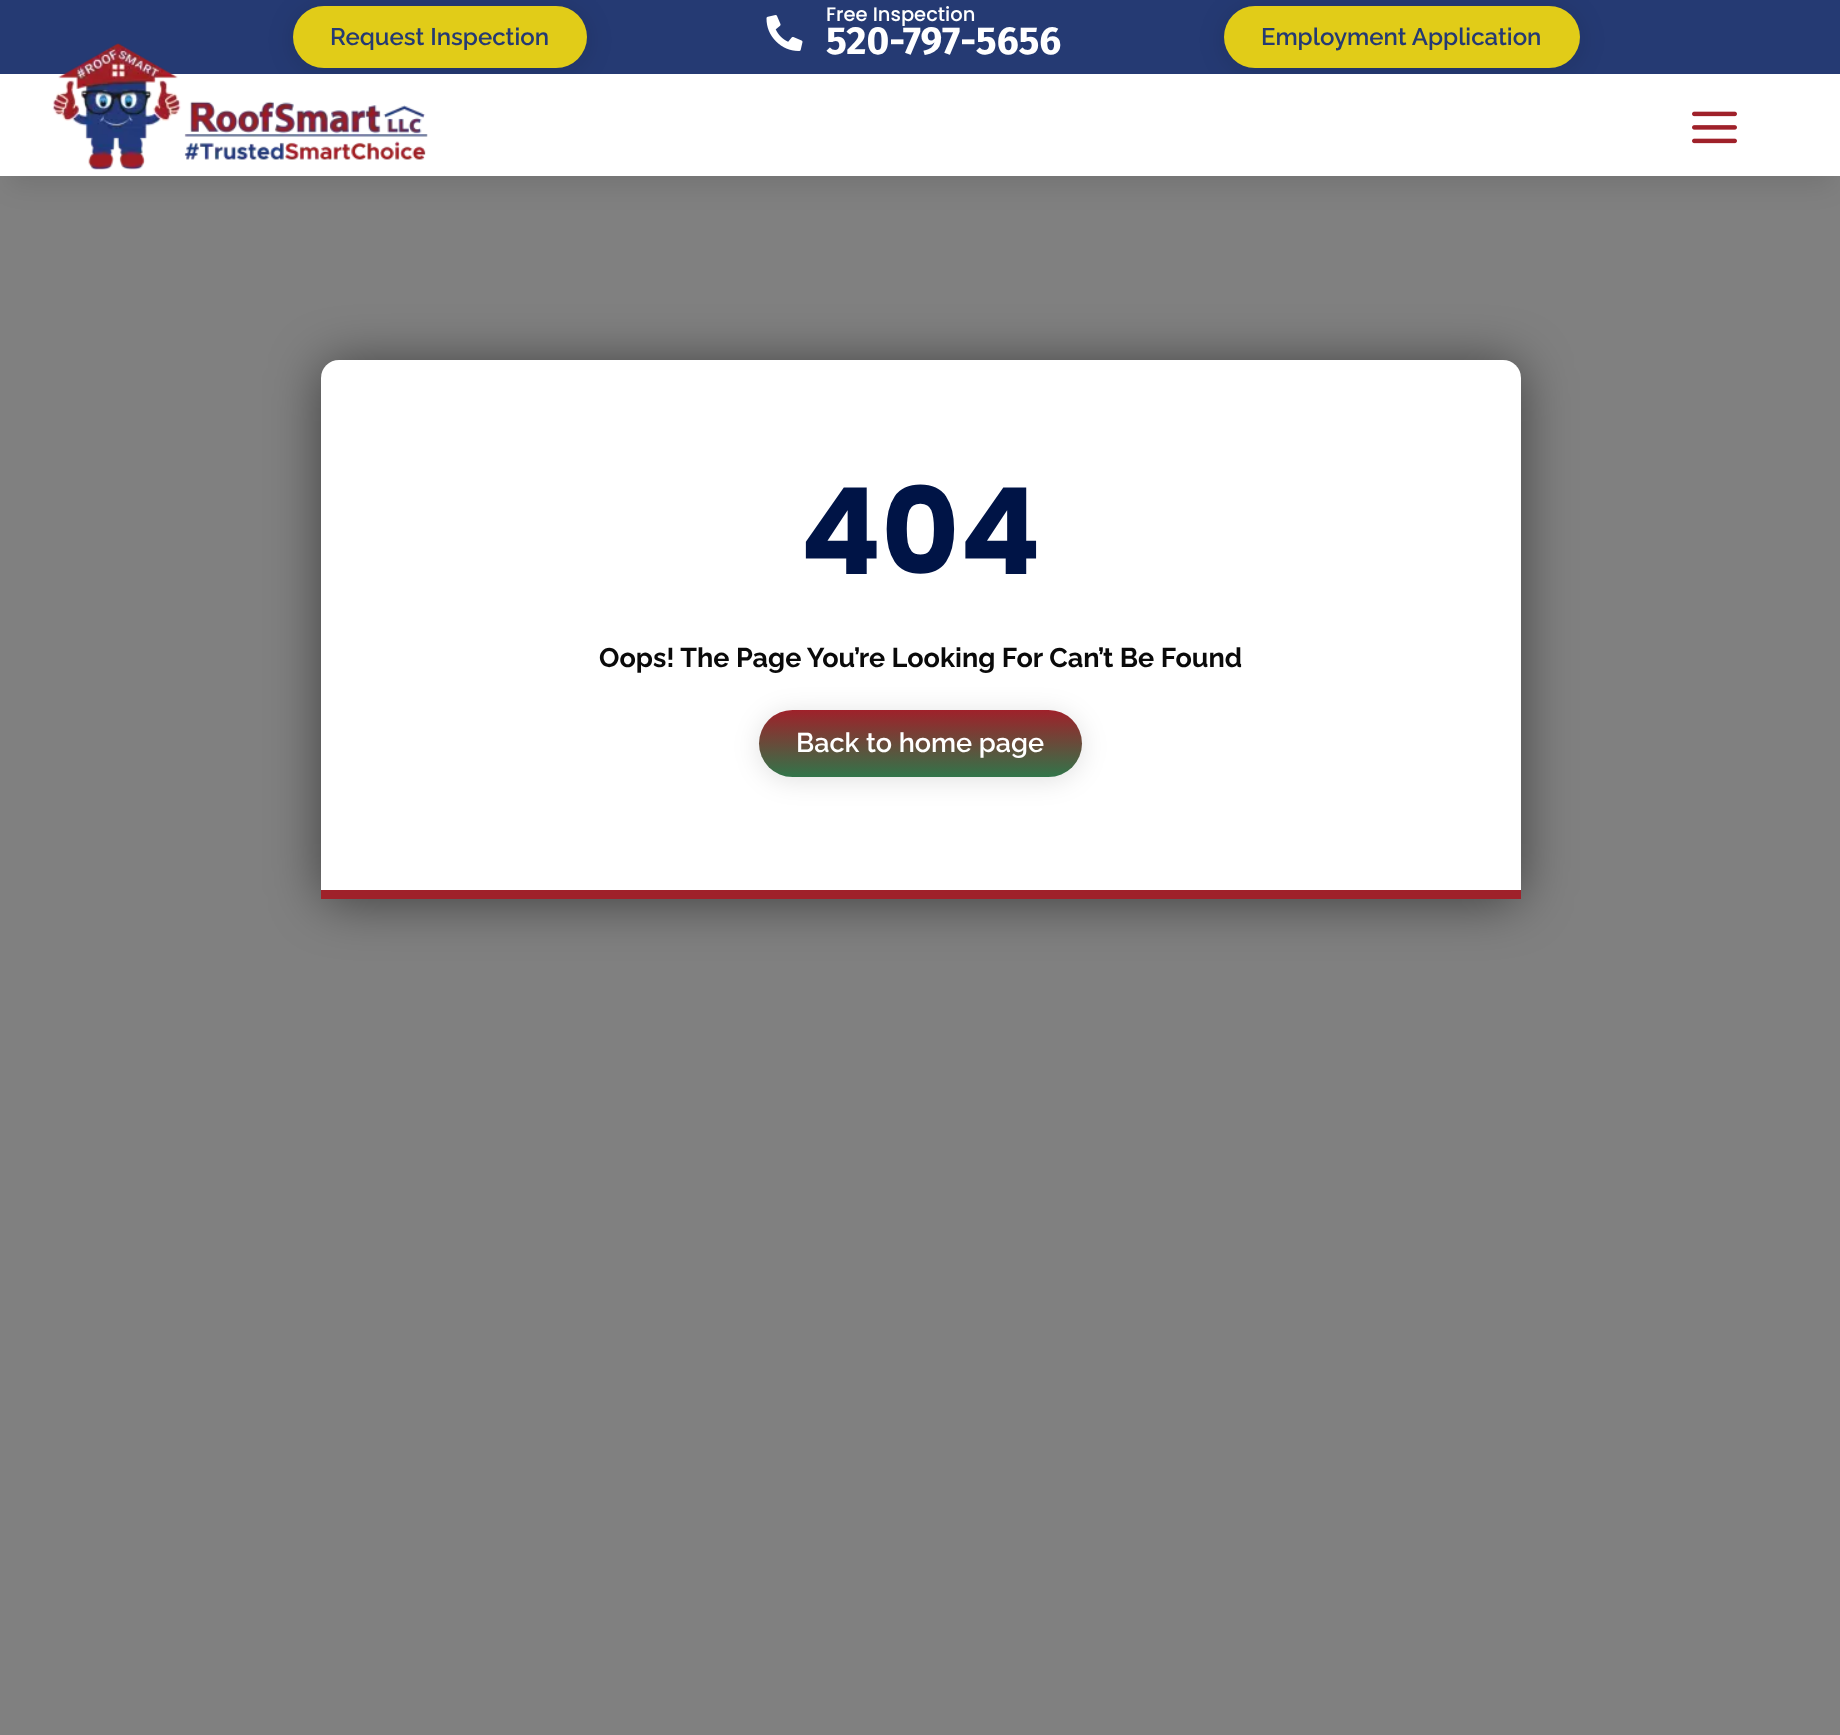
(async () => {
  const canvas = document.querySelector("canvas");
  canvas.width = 1840;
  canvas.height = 1735;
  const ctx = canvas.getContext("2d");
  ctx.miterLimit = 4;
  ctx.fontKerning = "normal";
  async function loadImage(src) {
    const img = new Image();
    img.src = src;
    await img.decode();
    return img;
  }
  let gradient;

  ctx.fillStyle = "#808080";
  ctx.fillRect(0, 0, 1840, 1735);
  ctx.fillStyle = "#253a73";
  ctx.fillRect(0, 0, 1840, 74);
  ctx.fillStyle = "rgba(0, 0, 0, 0.12)";
  ctx.filter = "blur(13.5px)";
  ctx.beginPath();
  ctx.roundRect(293, 9, 294, 62, 31);
  ctx.fill();
  ctx.filter = "none";
  ctx.fillStyle = "#e1cc18";
  ctx.beginPath();
  ctx.roundRect(293, 6, 294, 62, 31);
  ctx.fill();
  ctx.drawImage(await loadImage("img/1.png"), 766, 15, 37, 36);
  ctx.fillStyle = "rgba(0, 0, 0, 0.12)";
  ctx.filter = "blur(13.5px)";
  ctx.beginPath();
  ctx.roundRect(1224, 9, 356, 62, 31);
  ctx.fill();
  ctx.filter = "none";
  ctx.fillStyle = "#e1cc18";
  ctx.beginPath();
  ctx.roundRect(1224, 6, 356, 62, 31);
  ctx.fill();
  ctx.fillStyle = "rgba(0, 0, 0, 0.1)";
  ctx.filter = "blur(13.5px)";
  ctx.beginPath();
  ctx.rect(9, 101, 1823, 84);
  ctx.fill();
  ctx.filter = "none";
  ctx.fillStyle = "#ffffff";
  ctx.fillRect(0, 74, 1840, 102);
  ctx.drawImage(await loadImage("img/3.png"), 1692, 111, 45, 33);
  ctx.fillStyle = "rgba(0, 0, 0, 0.5)";
  ctx.filter = "blur(26px)";
  ctx.beginPath();
  ctx.roundRect(321, 363, 1200, 539, 18);
  ctx.fill();
  ctx.filter = "none";
  ctx.fillStyle = "#ffffff";
  ctx.beginPath();
  ctx.roundRect(321, 360, 1200, 530, [18, 18, 0, 0]);
  ctx.fill();
  ctx.fillStyle = "#9f212a";
  ctx.fillRect(321, 890, 1200, 9);
  ctx.fillStyle = "rgba(0, 0, 0, 0.12)";
  ctx.filter = "blur(13.5px)";
  ctx.beginPath();
  ctx.roundRect(759, 713, 323, 67, 33.5);
  ctx.fill();
  ctx.filter = "none";
  gradient = ctx.createLinearGradient(920, 710, 920, 777);
  gradient.addColorStop(0, "#9f212a");
  gradient.addColorStop(1, "#31754a");
  ctx.fillStyle = gradient;
  ctx.beginPath();
  ctx.roundRect(759, 710, 323, 67, 33.5);
  ctx.fill();
  ctx.font = "600 24px Raleway";
  ctx.fillStyle = "#253a73";
  ctx.fillText("Request Inspection", 330, 45);
  ctx.font = "500 19.5px Poppins";
  ctx.fillStyle = "#ffffff";
  ctx.fillText("Free Inspection", 826, 21);
  ctx.font = "bold 39px Fira Sans";
  ctx.fillText("520-797-5656", 826, 54);
  ctx.font = "600 24px Raleway";
  ctx.fillStyle = "#253a73";
  ctx.fillText("Employment Application", 1261, 45);
  ctx.drawImage(await loadImage("img/2.png"), 52, 43, 376, 127);
  ctx.font = "bold 120px Poppins";
  ctx.fillStyle = "#001446";
  ctx.fillText("404", 800, 574);
  ctx.font = "bold 27px Raleway";
  ctx.fillStyle = "#0a0a0a";
  ctx.fillText("Oops! The Page You’re Looking For Can’t Be Found", 599, 667);
  ctx.font = "600 27px Raleway";
  ctx.fillStyle = "#ffffff";
  ctx.fillText("Back to home page", 796, 752);
})();
